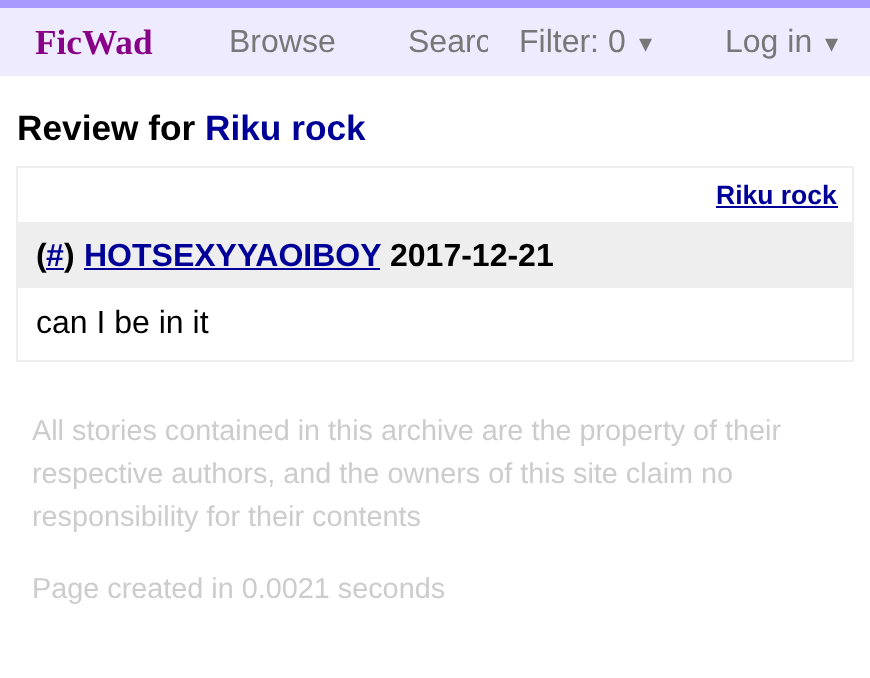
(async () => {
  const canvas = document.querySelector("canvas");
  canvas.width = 870;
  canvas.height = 678;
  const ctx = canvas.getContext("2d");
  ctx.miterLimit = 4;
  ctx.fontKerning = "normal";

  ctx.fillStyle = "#ffffff";
  ctx.fillRect(0, 0, 870, 678);
  ctx.fillStyle = "#eeebff";
  ctx.fillRect(0, 8, 488, 68);
  ctx.fillStyle = "#a899ff";
  ctx.fillRect(0, 0, 870, 8);
  ctx.strokeStyle = "#eeeeee";
  ctx.lineWidth = 2;
  ctx.strokeRect(17, 167, 836, 194);
  for (const [x, y, w, h, color] of [
    [716, 206, 122, 2, "#000099"],
    [18, 222, 834, 66, "#eeeeee"],
    [84, 268, 296, 2, "#000099"],
  ]) {
    ctx.fillStyle = color;
    ctx.fillRect(x, y, w, h);
  }
  ctx.font = "bold 35.25px Liberation Serif";
  ctx.fillStyle = "#880088";
  ctx.fillText("FicWad", 35, 54);
  ctx.font = "32px Liberation Sans";
  ctx.fillStyle = "#777777";
  ctx.fillText("Browse", 229, 52);
  ctx.fillText("Searc", 408, 52);
  ctx.fillStyle = "#eeebff";
  ctx.fillRect(488, 8, 382, 68);
  ctx.fillStyle = "#777777";
  ctx.fillText("Filter: 0", 519, 52);
  ctx.font = "26px DejaVu Sans";
  ctx.fillText("▾", 639, 52);
  ctx.font = "32px Liberation Sans";
  ctx.fillText("Log in", 725, 52);
  ctx.font = "26px DejaVu Sans";
  ctx.fillText("▾", 825, 52);
  ctx.font = "bold 35.25px Liberation Sans";
  ctx.fillStyle = "#000000";
  ctx.fillText("Review for", 17, 140);
  ctx.fillStyle = "#000099";
  ctx.fillText("Riku rock", 205, 140);
  ctx.font = "bold 26.5px Liberation Sans";
  ctx.fillText("Riku rock", 716, 204);
  ctx.font = "bold 32px Liberation Sans";
  ctx.fillStyle = "#000000";
  ctx.fillText("(", 36, 266);
  ctx.fillStyle = "#000099";
  ctx.fillText("#", 46, 266);
  ctx.fillRect(46, 268, 18, 2);
  ctx.fillStyle = "#000000";
  ctx.fillText(")", 64, 266);
  ctx.fillStyle = "#000099";
  ctx.fillText("HOTSEXYYAOIBOY", 84, 266);
  ctx.fillStyle = "#000000";
  ctx.fillText("2017-12-21", 390, 266);
  ctx.font = "32px Liberation Sans";
  ctx.fillText("can I be in it", 36, 333);
  ctx.font = "28.8px Liberation Sans";
  ctx.fillStyle = "#cccccc";
  for (const [text, x, y] of [
    ["All stories contained in this archive are the property of their", 32, 440],
    ["respective authors, and the owners of this site claim no", 32, 483],
    ["responsibility for their contents", 32, 526],
    ["Page created in 0.0021 seconds", 32, 598],
  ]) {
    ctx.fillText(text, x, y);
  }
})();
